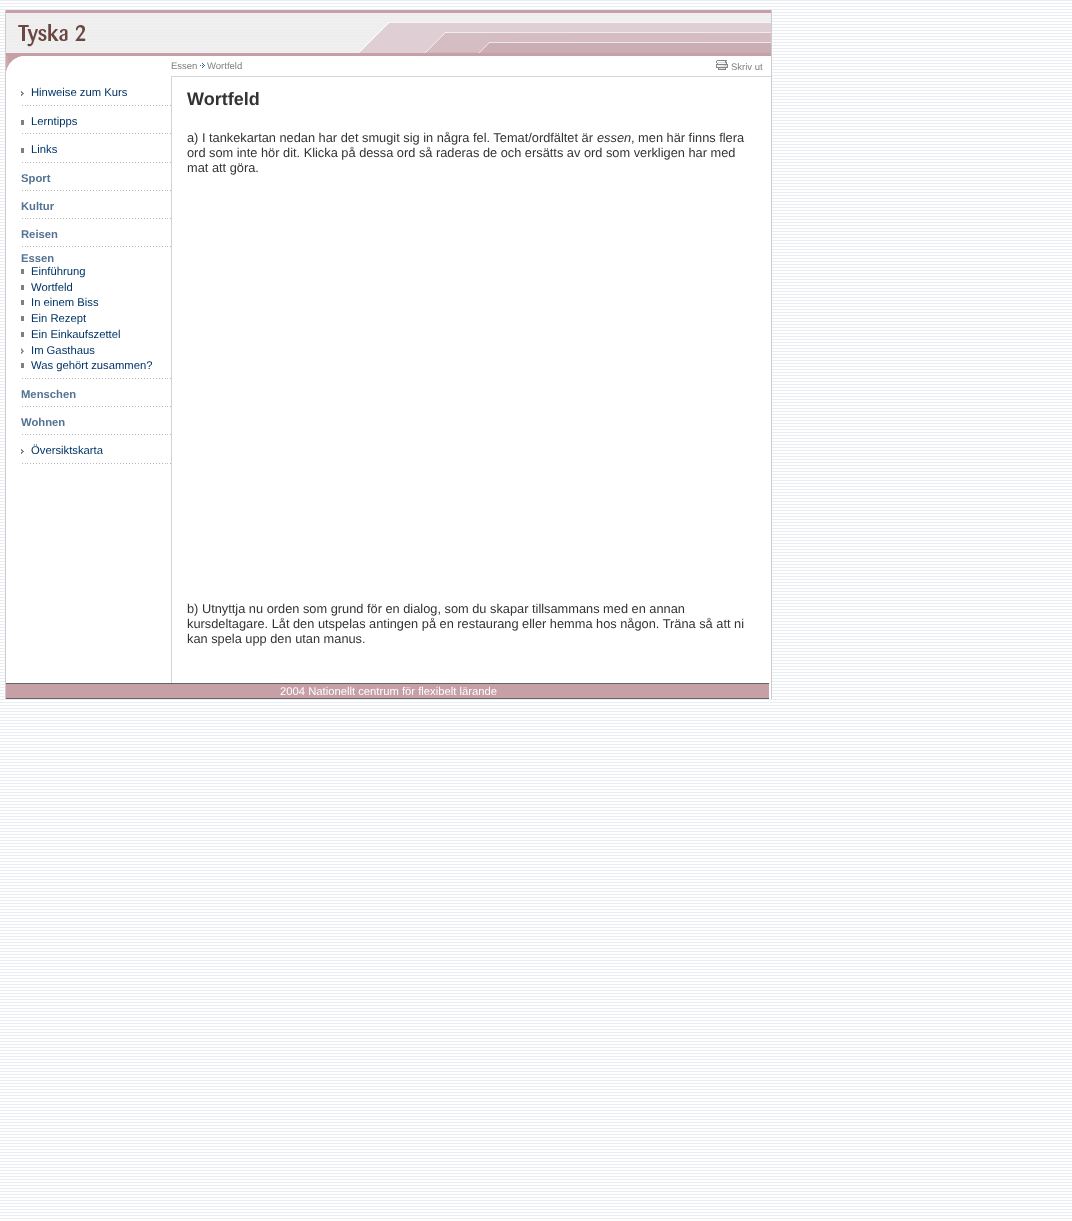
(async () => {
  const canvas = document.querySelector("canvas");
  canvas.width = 1072;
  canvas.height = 1221;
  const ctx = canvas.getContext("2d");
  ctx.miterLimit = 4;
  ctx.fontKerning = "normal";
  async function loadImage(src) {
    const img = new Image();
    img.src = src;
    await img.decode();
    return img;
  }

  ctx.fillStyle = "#ffffff";
  ctx.fillRect(0, 0, 1072, 1221);
  ctx.drawImage(await loadImage("img/1.png"), 0, 0, 1072, 1219);
  for (const [x, y, w, h, color] of [
    [6, 57, 765, 640, "#ffffff"],
    [771, 10, 1, 689, "#cccccc"],
    [5, 10, 1, 689, "#cccccc"],
  ]) {
    ctx.fillStyle = color;
    ctx.fillRect(x, y, w, h);
  }
  ctx.drawImage(await loadImage("img/2.png"), 6, 10, 765, 46);
  ctx.drawImage(await loadImage("img/3.png"), 6, 22, 484, 31);
  ctx.drawImage(await loadImage("img/4.png"), 6, 56, 16, 16);
  ctx.drawImage(await loadImage("img/5.png"), 200, 63, 5, 5);
  ctx.fillStyle = "#d6d6d6";
  ctx.fillRect(171, 76, 600, 1);
  ctx.drawImage(await loadImage("img/6.png"), 716, 60, 12, 10);
  ctx.drawImage(await loadImage("img/7.png"), 22, 105, 149, 1);
  ctx.drawImage(await loadImage("img/8.png"), 21, 91, 4, 5);
  ctx.drawImage(await loadImage("img/7.png"), 22, 133, 149, 1);
  ctx.fillStyle = "#80807d";
  ctx.fillRect(21, 120, 3, 5);
  ctx.drawImage(await loadImage("img/7.png"), 22, 162, 149, 1);
  ctx.fillRect(21, 148, 3, 5);
  ctx.drawImage(await loadImage("img/7.png"), 22, 190, 149, 1);
  ctx.drawImage(await loadImage("img/7.png"), 22, 218, 149, 1);
  ctx.drawImage(await loadImage("img/7.png"), 22, 246, 149, 1);
  ctx.drawImage(await loadImage("img/7.png"), 22, 378, 149, 1);
  for (const [x, y, w, h, color] of [
    [21, 269, 3, 5, "#80807d"],
    [21, 285, 3, 5, "#80807d"],
    [21, 300, 3, 5, "#80807d"],
    [21, 316, 3, 5, "#80807d"],
    [21, 332, 3, 5, "#80807d"],
  ]) {
    ctx.fillStyle = color;
    ctx.fillRect(x, y, w, h);
  }
  ctx.drawImage(await loadImage("img/9.png"), 21, 348, 3, 6);
  ctx.fillRect(21, 363, 3, 5);
  ctx.drawImage(await loadImage("img/7.png"), 22, 406, 149, 1);
  ctx.drawImage(await loadImage("img/7.png"), 22, 434, 149, 1);
  ctx.drawImage(await loadImage("img/7.png"), 22, 463, 149, 1);
  ctx.drawImage(await loadImage("img/8.png"), 21, 449, 4, 5);
  for (const [x, y, w, h, color] of [
    [171, 77, 1, 606, "#d3d3d3"],
    [6, 684, 763, 14, "#c7a0a7"],
    [6, 683, 763, 1, "#636563"],
    [6, 698, 763, 1, "#636563"],
  ]) {
    ctx.fillStyle = color;
    ctx.fillRect(x, y, w, h);
  }
  ctx.font = "9.5px Liberation Sans";
  ctx.fillStyle = "#7f7f7f";
  for (const [text, x, y] of [
    ["Essen", 171, 69],
    ["Wortfeld", 207, 69],
    ["Skriv ut", 731, 70],
  ]) {
    ctx.fillText(text, x, y);
  }
  ctx.font = "11.25px Liberation Sans";
  ctx.fillStyle = "#003366";
  for (const [text, x, y] of [
    ["Hinweise zum Kurs", 31, 96],
    ["Lerntipps", 31, 125],
    ["Links", 31, 153],
  ]) {
    ctx.fillText(text, x, y);
  }
  ctx.font = "bold 11.25px Liberation Sans";
  ctx.fillStyle = "#547292";
  for (const [text, x, y] of [
    ["Sport", 21, 182],
    ["Kultur", 21, 210],
    ["Reisen", 21, 238],
    ["Essen", 21, 262],
  ]) {
    ctx.fillText(text, x, y);
  }
  ctx.font = "11.25px Liberation Sans";
  ctx.fillStyle = "#003366";
  for (const [text, x, y] of [
    ["Einführung", 31, 275],
    ["Wortfeld", 31, 291],
    ["In einem Biss", 31, 306],
    ["Ein Rezept", 31, 322],
    ["Ein Einkaufszettel", 31, 338],
    ["Im Gasthaus", 31, 354],
    ["Was gehört zusammen?", 31, 369],
  ]) {
    ctx.fillText(text, x, y);
  }
  ctx.font = "bold 11.25px Liberation Sans";
  ctx.fillStyle = "#547292";
  ctx.fillText("Menschen", 21, 398);
  ctx.fillText("Wohnen", 21, 426);
  ctx.font = "11.25px Liberation Sans";
  ctx.fillStyle = "#003366";
  ctx.fillText("Översiktskarta", 31, 454);
  ctx.font = "bold 18px Liberation Sans";
  ctx.fillStyle = "#333333";
  ctx.fillText("Wortfeld", 187, 105);
  ctx.font = "12.8px Liberation Sans";
  ctx.fillText("a) I tankekartan nedan har det smugit sig in några fel. Temat/ordfältet är", 187, 142);
  ctx.font = "italic 12.8px Liberation Sans";
  ctx.fillText("essen", 597, 142);
  ctx.font = "12.8px Liberation Sans";
  for (const [text, x, y] of [
    [", men här finns flera", 631, 142],
    ["ord som inte hör dit. Klicka på dessa ord så raderas de och ersätts av ord som verkligen har med", 187, 157],
    ["mat att göra.", 187, 172],
    ["b) Utnyttja nu orden som grund för en dialog, som du skapar tillsammans med en annan", 187, 613],
    ["kursdeltagare. Låt den utspelas antingen på en restaurang eller hemma hos någon. Träna så att ni", 187, 628],
    ["kan spela upp den utan manus.", 187, 643],
  ]) {
    ctx.fillText(text, x, y);
  }
  ctx.font = "11.25px Liberation Sans";
  ctx.fillStyle = "#ffffff";
  ctx.fillText("2004 Nationellt centrum för flexibelt lärande", 280, 695);
})();
